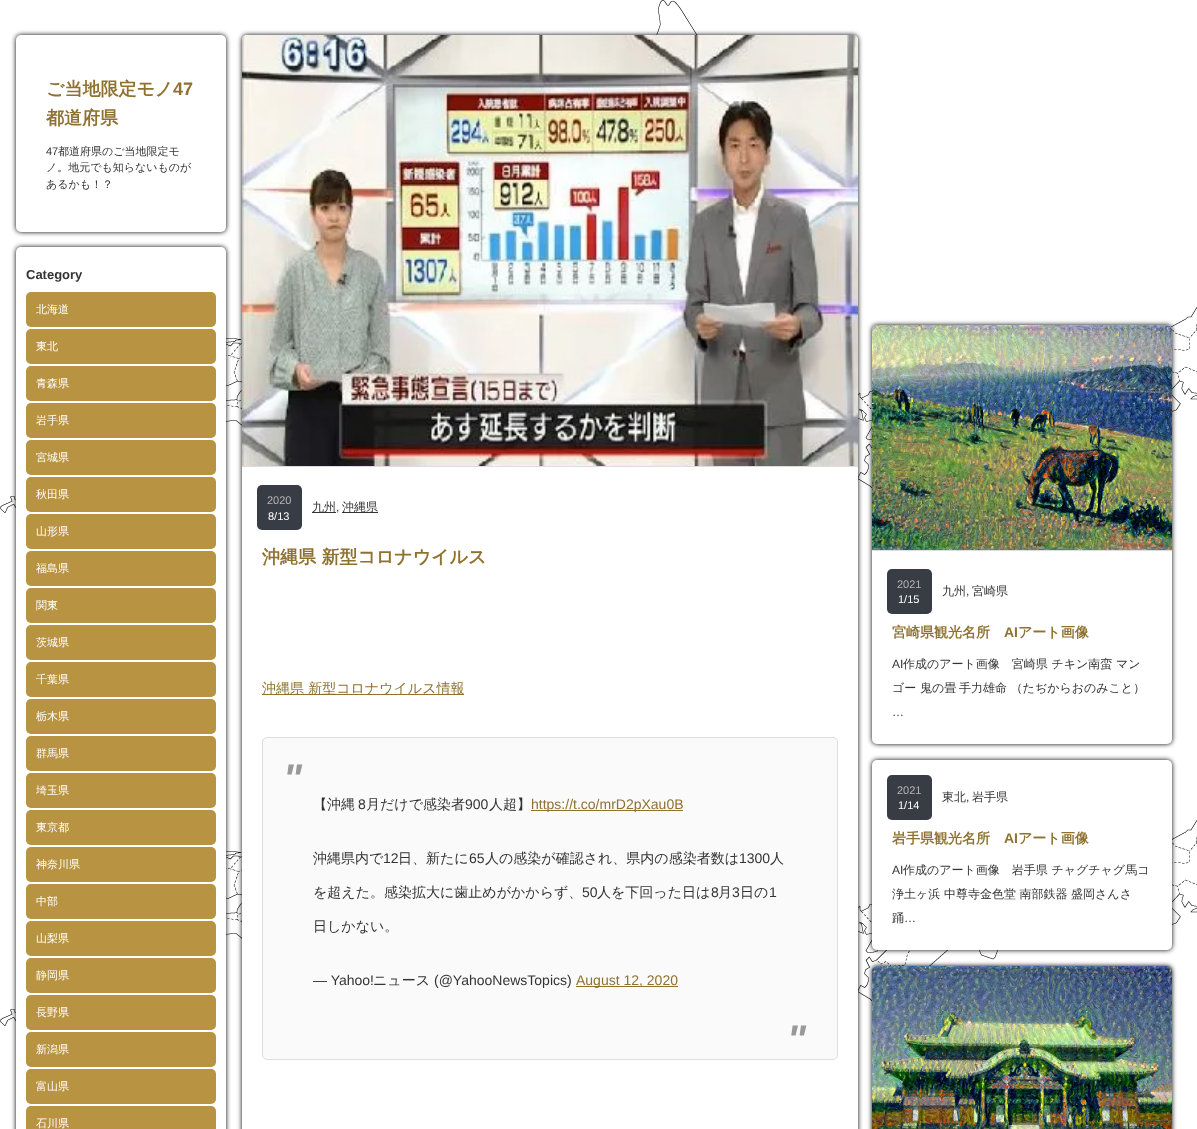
(async () => {
  const canvas = document.querySelector("canvas");
  canvas.width = 1197;
  canvas.height = 1129;
  const ctx = canvas.getContext("2d");
  ctx.miterLimit = 4;
  ctx.fontKerning = "normal";
  async function loadImage(src) {
    const img = new Image();
    img.src = src;
    await img.decode();
    return img;
  }

  ctx.fillStyle = "#ffffff";
  ctx.fillRect(0, 0, 1197, 1129);
  ctx.drawImage(await loadImage("img/1.png"), 0, 0, 1197, 1129);
  ctx.fillStyle = "#000000";
  ctx.filter = "blur(2.5px)";
  ctx.beginPath();
  ctx.roundRect(16, 35, 210, 197, 5);
  ctx.fill();
  ctx.filter = "none";
  ctx.fillStyle = "#ffffff";
  ctx.beginPath();
  ctx.roundRect(16, 35, 210, 197, 5);
  ctx.fill();
  ctx.fillStyle = "#000000";
  ctx.filter = "blur(2.5px)";
  ctx.beginPath();
  ctx.roundRect(16, 247, 210, 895, 5);
  ctx.fill();
  ctx.filter = "none";
  ctx.fillStyle = "#ffffff";
  ctx.beginPath();
  ctx.roundRect(16, 247, 210, 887, 5);
  ctx.fill();
  ctx.fillStyle = "#b89342";
  ctx.beginPath();
  ctx.roundRect(26, 292, 190, 35, 5);
  ctx.fill();
  ctx.beginPath();
  ctx.roundRect(26, 329, 190, 35, 5);
  ctx.fill();
  ctx.beginPath();
  ctx.roundRect(26, 366, 190, 35, 5);
  ctx.fill();
  ctx.beginPath();
  ctx.roundRect(26, 403, 190, 35, 5);
  ctx.fill();
  ctx.beginPath();
  ctx.roundRect(26, 440, 190, 35, 5);
  ctx.fill();
  ctx.beginPath();
  ctx.roundRect(26, 477, 190, 35, 5);
  ctx.fill();
  ctx.beginPath();
  ctx.roundRect(26, 514, 190, 35, 5);
  ctx.fill();
  ctx.beginPath();
  ctx.roundRect(26, 551, 190, 35, 5);
  ctx.fill();
  ctx.beginPath();
  ctx.roundRect(26, 588, 190, 35, 5);
  ctx.fill();
  ctx.beginPath();
  ctx.roundRect(26, 625, 190, 35, 5);
  ctx.fill();
  ctx.beginPath();
  ctx.roundRect(26, 662, 190, 35, 5);
  ctx.fill();
  ctx.beginPath();
  ctx.roundRect(26, 699, 190, 35, 5);
  ctx.fill();
  ctx.beginPath();
  ctx.roundRect(26, 736, 190, 35, 5);
  ctx.fill();
  ctx.beginPath();
  ctx.roundRect(26, 773, 190, 35, 5);
  ctx.fill();
  ctx.beginPath();
  ctx.roundRect(26, 810, 190, 35, 5);
  ctx.fill();
  ctx.beginPath();
  ctx.roundRect(26, 847, 190, 35, 5);
  ctx.fill();
  ctx.beginPath();
  ctx.roundRect(26, 884, 190, 35, 5);
  ctx.fill();
  ctx.beginPath();
  ctx.roundRect(26, 921, 190, 35, 5);
  ctx.fill();
  ctx.beginPath();
  ctx.roundRect(26, 958, 190, 35, 5);
  ctx.fill();
  ctx.beginPath();
  ctx.roundRect(26, 995, 190, 35, 5);
  ctx.fill();
  ctx.beginPath();
  ctx.roundRect(26, 1032, 190, 35, 5);
  ctx.fill();
  ctx.beginPath();
  ctx.roundRect(26, 1069, 190, 35, 5);
  ctx.fill();
  ctx.beginPath();
  ctx.roundRect(26, 1106, 190, 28, 5);
  ctx.fill();
  ctx.fillStyle = "#000000";
  ctx.filter = "blur(2.5px)";
  ctx.beginPath();
  ctx.roundRect(242, 35, 616, 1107, 5);
  ctx.fill();
  ctx.filter = "none";
  ctx.fillStyle = "#ffffff";
  ctx.beginPath();
  ctx.roundRect(242, 35, 616, 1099, 5);
  ctx.fill();
  ctx.drawImage(await loadImage("img/2.png"), 242, 35, 616, 431);
  ctx.fillStyle = "#dddddd";
  ctx.fillRect(242, 466, 616, 1);
  ctx.fillStyle = "#383c45";
  ctx.beginPath();
  ctx.roundRect(257, 485, 45, 45, 5);
  ctx.fill();
  for (const [x, y, w, h, color] of [
    [312, 512, 24, 1, "#333333"],
    [342, 512, 36, 1, "#333333"],
    [262, 694, 202, 1, "#8f7230"],
  ]) {
    ctx.fillStyle = color;
    ctx.fillRect(x, y, w, h);
  }
  ctx.fillStyle = "#fafafa";
  ctx.beginPath();
  ctx.roundRect(262.5, 737.5, 575, 322, 4.5);
  ctx.fill();
  ctx.strokeStyle = "#dddddd";
  ctx.stroke();
  ctx.fillStyle = "#8f7230";
  ctx.fillRect(531, 810, 152, 1);
  ctx.fillRect(576, 986, 102, 1);
  ctx.fillStyle = "#000000";
  ctx.filter = "blur(2.5px)";
  ctx.beginPath();
  ctx.roundRect(872, 325, 300, 419, 5);
  ctx.fill();
  ctx.filter = "none";
  ctx.fillStyle = "#ffffff";
  ctx.beginPath();
  ctx.roundRect(872, 325, 300, 419, 5);
  ctx.fill();
  ctx.drawImage(await loadImage("img/3.png"), 872, 325, 300, 225);
  ctx.fillStyle = "#dddddd";
  ctx.fillRect(872, 550, 300, 1);
  ctx.fillStyle = "#383c45";
  ctx.beginPath();
  ctx.roundRect(887, 569, 45, 45, 5);
  ctx.fill();
  ctx.fillStyle = "#000000";
  ctx.filter = "blur(2.5px)";
  ctx.beginPath();
  ctx.roundRect(872, 760, 300, 190, 5);
  ctx.fill();
  ctx.filter = "none";
  ctx.fillStyle = "#ffffff";
  ctx.beginPath();
  ctx.roundRect(872, 760, 300, 190, 5);
  ctx.fill();
  ctx.fillStyle = "#383c45";
  ctx.beginPath();
  ctx.roundRect(887, 775, 45, 45, 5);
  ctx.fill();
  ctx.fillStyle = "#000000";
  ctx.filter = "blur(2.5px)";
  ctx.beginPath();
  ctx.roundRect(872, 966, 300, 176, 5);
  ctx.fill();
  ctx.filter = "none";
  ctx.drawImage(await loadImage("img/4.png"), 872, 966, 300, 163);
  ctx.font = "bold 18px WenQuanYi Zen Hei";
  ctx.fillStyle = "#8f7230";
  ctx.fillText("ご当地限定モノ", 46, 95);
  ctx.font = "bold 18px Liberation Sans";
  ctx.fillText("47", 173, 95);
  ctx.font = "bold 18px WenQuanYi Zen Hei";
  ctx.fillText("都道府県", 46, 124);
  ctx.font = "11px Liberation Sans";
  ctx.fillStyle = "#333333";
  ctx.fillText("47", 46, 155);
  ctx.font = "500 11px WenQuanYi Zen Hei";
  for (const [text, x, y] of [
    ["都道府県のご当地限定モ", 58, 155],
    ["ノ。地元でも知らないものが", 46, 171],
    ["あるかも！？", 46, 188],
  ]) {
    ctx.fillText(text, x, y);
  }
  ctx.font = "bold 13px Liberation Sans";
  ctx.fillText("Category", 26, 279);
  ctx.font = "500 11px WenQuanYi Zen Hei";
  ctx.fillStyle = "#ffffff";
  for (const [text, x, y] of [
    ["北海道", 36, 313],
    ["東北", 36, 350],
    ["青森県", 36, 387],
    ["岩手県", 36, 424],
    ["宮城県", 36, 461],
    ["秋田県", 36, 498],
    ["山形県", 36, 535],
    ["福島県", 36, 572],
    ["関東", 36, 609],
    ["茨城県", 36, 646],
    ["千葉県", 36, 683],
    ["栃木県", 36, 720],
    ["群馬県", 36, 757],
    ["埼玉県", 36, 794],
    ["東京都", 36, 831],
    ["神奈川県", 36, 868],
    ["中部", 36, 905],
    ["山梨県", 36, 942],
    ["静岡県", 36, 979],
    ["長野県", 36, 1016],
    ["新潟県", 36, 1053],
    ["富山県", 36, 1090],
    ["石川県", 36, 1127],
  ]) {
    ctx.fillText(text, x, y);
  }
  ctx.font = "11px Liberation Sans";
  ctx.fillStyle = "#b3b5b4";
  ctx.fillText("2020", 267, 504);
  ctx.fillStyle = "#ffffff";
  ctx.fillText("8/13", 268, 520);
  ctx.font = "500 12px WenQuanYi Zen Hei";
  ctx.fillStyle = "#333333";
  ctx.fillText("九州", 312, 511);
  ctx.font = "12px Liberation Sans";
  ctx.fillText(",", 336, 511);
  ctx.font = "500 12px WenQuanYi Zen Hei";
  ctx.fillText("沖縄県", 342, 511);
  ctx.font = "bold 18px WenQuanYi Zen Hei";
  ctx.fillStyle = "#8f7230";
  ctx.fillText("沖縄県 新型コロナウイルス", 262, 563);
  ctx.font = "500 14px WenQuanYi Zen Hei";
  ctx.fillText("沖縄県 新型コロナウイルス情報", 262, 693);
  ctx.font = "italic bold 40px Liberation Sans";
  ctx.fillStyle = "#999999";
  ctx.fillText("\"", 283, 792);
  ctx.font = "500 14px WenQuanYi Zen Hei";
  ctx.fillStyle = "#333333";
  ctx.fillText("【沖縄", 313, 809);
  ctx.font = "14px Liberation Sans";
  ctx.fillText("8", 358, 809);
  ctx.font = "500 14px WenQuanYi Zen Hei";
  ctx.fillText("月だけで感染者", 366, 809);
  ctx.font = "14px Liberation Sans";
  ctx.fillText("900", 465, 809);
  ctx.font = "500 14px WenQuanYi Zen Hei";
  ctx.fillText("人超】", 489, 809);
  ctx.font = "14px Liberation Sans";
  ctx.fillStyle = "#8f7230";
  ctx.fillText("https://t.co/mrD2pXau0B", 531, 809);
  ctx.font = "500 14px WenQuanYi Zen Hei";
  ctx.fillStyle = "#333333";
  ctx.fillText("沖縄県内で", 313, 863);
  ctx.font = "14px Liberation Sans";
  ctx.fillText("12", 383, 863);
  ctx.font = "500 14px WenQuanYi Zen Hei";
  ctx.fillText("日、新たに", 398, 863);
  ctx.font = "14px Liberation Sans";
  ctx.fillText("65", 469, 863);
  ctx.font = "500 14px WenQuanYi Zen Hei";
  ctx.fillText("人の感染が確認され、県内の感染者数は", 485, 863);
  ctx.font = "14px Liberation Sans";
  ctx.fillText("1300", 739, 863);
  ctx.font = "500 14px WenQuanYi Zen Hei";
  ctx.fillText("人", 770, 863);
  ctx.fillText("を超えた。感染拡大に歯止めがかからず、", 313, 897);
  ctx.font = "14px Liberation Sans";
  ctx.fillText("50", 582, 897);
  ctx.font = "500 14px WenQuanYi Zen Hei";
  ctx.fillText("人を下回った日は", 597, 897);
  ctx.font = "14px Liberation Sans";
  ctx.fillText("8", 711, 897);
  ctx.font = "500 14px WenQuanYi Zen Hei";
  ctx.fillText("月", 718, 897);
  ctx.font = "14px Liberation Sans";
  ctx.fillText("3", 732, 897);
  ctx.font = "500 14px WenQuanYi Zen Hei";
  ctx.fillText("日の", 740, 897);
  ctx.font = "14px Liberation Sans";
  ctx.fillText("1", 769, 897);
  ctx.font = "500 14px WenQuanYi Zen Hei";
  ctx.fillText("日しかない。", 313, 931);
  ctx.font = "14px Liberation Sans";
  ctx.fillText("— Yahoo!", 313, 985);
  ctx.font = "500 14px WenQuanYi Zen Hei";
  ctx.fillText("ニュース", 373, 985);
  ctx.font = "14px Liberation Sans";
  ctx.fillText("(@YahooNewsTopics)", 434, 985);
  ctx.fillStyle = "#8f7230";
  ctx.fillText("August 12, 2020", 576, 985);
  ctx.font = "italic bold 40px Liberation Sans";
  ctx.fillStyle = "#999999";
  ctx.fillText("\"", 787, 1053);
  ctx.font = "11px Liberation Sans";
  ctx.fillStyle = "#b3b5b4";
  ctx.fillText("2021", 897, 588);
  ctx.fillStyle = "#ffffff";
  ctx.fillText("1/15", 898, 603);
  ctx.font = "500 12px WenQuanYi Zen Hei";
  ctx.fillStyle = "#333333";
  ctx.fillText("九州", 942, 595);
  ctx.font = "12px Liberation Sans";
  ctx.fillText(",", 966, 595);
  ctx.font = "500 12px WenQuanYi Zen Hei";
  ctx.fillText("宮崎県", 972, 595);
  ctx.font = "bold 14px WenQuanYi Zen Hei";
  ctx.fillStyle = "#8f7230";
  ctx.fillText("宮崎県観光名所", 892, 637);
  ctx.font = "bold 14px Liberation Sans";
  ctx.fillText("AI", 1004, 637);
  ctx.font = "bold 14px WenQuanYi Zen Hei";
  ctx.fillText("アート画像", 1018, 637);
  ctx.font = "12px Liberation Sans";
  ctx.fillStyle = "#333333";
  ctx.fillText("AI", 892, 668);
  ctx.font = "500 12px WenQuanYi Zen Hei";
  for (const [text, x, y] of [
    ["作成のアート画像　宮崎県 チキン南蛮 マン", 903, 668],
    ["ゴー 鬼の畳", 892, 692],
    ["手力雄命 （たぢからおのみこと）", 959, 692],
  ]) {
    ctx.fillText(text, x, y);
  }
  ctx.font = "12px Liberation Sans";
  ctx.fillText("…", 892, 716);
  ctx.font = "11px Liberation Sans";
  ctx.fillStyle = "#b3b5b4";
  ctx.fillText("2021", 897, 794);
  ctx.fillStyle = "#ffffff";
  ctx.fillText("1/14", 898, 809);
  ctx.font = "500 12px WenQuanYi Zen Hei";
  ctx.fillStyle = "#333333";
  ctx.fillText("東北", 942, 801);
  ctx.font = "12px Liberation Sans";
  ctx.fillText(",", 966, 801);
  ctx.font = "500 12px WenQuanYi Zen Hei";
  ctx.fillText("岩手県", 972, 801);
  ctx.font = "bold 14px WenQuanYi Zen Hei";
  ctx.fillStyle = "#8f7230";
  ctx.fillText("岩手県観光名所", 892, 843);
  ctx.font = "bold 14px Liberation Sans";
  ctx.fillText("AI", 1004, 843);
  ctx.font = "bold 14px WenQuanYi Zen Hei";
  ctx.fillText("アート画像", 1018, 843);
  ctx.font = "12px Liberation Sans";
  ctx.fillStyle = "#333333";
  ctx.fillText("AI", 892, 874);
  ctx.font = "500 12px WenQuanYi Zen Hei";
  for (const [text, x, y] of [
    ["作成のアート画像　岩手県 チャグチャグ馬コ", 903, 874],
    ["浄土ヶ浜 中尊寺金色堂 南部鉄器 盛岡さんさ", 892, 898],
    ["踊", 892, 922],
  ]) {
    ctx.fillText(text, x, y);
  }
  ctx.font = "12px Liberation Sans";
  ctx.fillText("…", 904, 922);
})();
